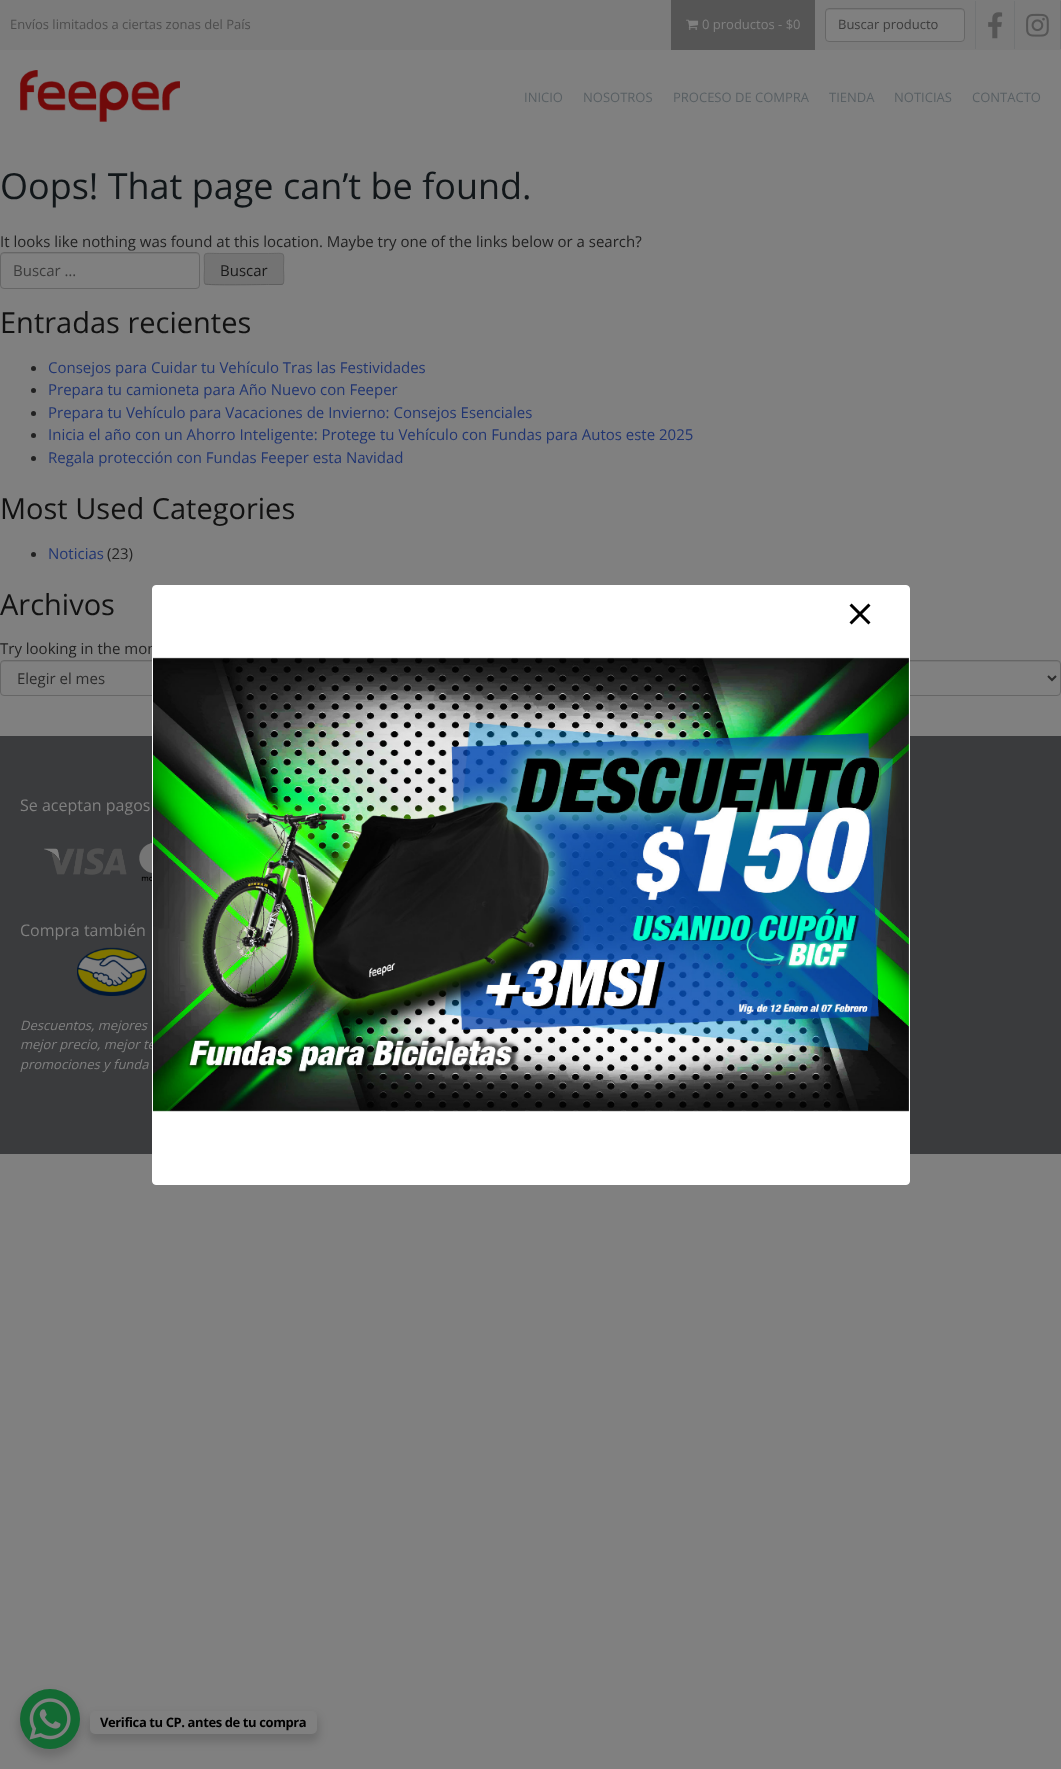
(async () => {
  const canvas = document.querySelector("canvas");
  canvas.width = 1061;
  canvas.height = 1769;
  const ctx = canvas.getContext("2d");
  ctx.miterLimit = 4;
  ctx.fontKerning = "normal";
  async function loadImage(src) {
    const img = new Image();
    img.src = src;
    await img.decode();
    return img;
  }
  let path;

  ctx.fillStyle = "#808080";
  ctx.fillRect(0, 0, 1061, 1769);
  ctx.fillStyle = "#7b7b7b";
  ctx.fillRect(0, 0, 1061, 50);
  ctx.fillStyle = "#555555";
  ctx.fillRect(671, 0, 144, 50);
  ctx.drawImage(await loadImage("img/1.png"), 686, 19, 13, 11);
  ctx.fillStyle = "#808080";
  ctx.beginPath();
  ctx.roundRect(825, 8, 140, 34, 4);
  ctx.fill();
  ctx.fillStyle = "#767676";
  path = new Path2D("M829 10H961C963 10 964 11 964 13C964 11 964 9 962 9H828C826 9 826 11 826 13C826 11 827 10 829 10Z");
  ctx.fill(path);
  ctx.beginPath();
  ctx.roundRect(825.5, 8.5, 139, 33, 3.5);
  ctx.strokeStyle = "#666666";
  ctx.stroke();
  ctx.fillStyle = "#717374";
  ctx.fillRect(975, 1, 1, 48);
  ctx.drawImage(await loadImage("img/2.png"), 988, 12, 15, 27);
  ctx.fillRect(1060, 1, 1, 48);
  ctx.fillRect(1014, 1, 1, 48);
  ctx.drawImage(await loadImage("img/3.png"), 1026, 13, 23, 24);
  ctx.drawImage(await loadImage("img/4.png"), 20, 70, 160, 52);
  ctx.fillStyle = "#767676";
  path = new Path2D("M4 254H196C198 254 199 255 199 257C199 255 198 253 196 253H4C2 253 1 255 1 257C1 255 2 254 4 254Z");
  ctx.fill(path);
  ctx.beginPath();
  ctx.roundRect(0.5, 252.5, 199, 36, 3.5);
  ctx.stroke();
  ctx.fillStyle = "#737373";
  ctx.beginPath();
  ctx.roundRect(204, 253, 80, 32, 3);
  ctx.fill();
  path = new Path2D("M283 284L281 284.5H268.5C262 284.5 207.5 285.5 205.5 284H205");
  ctx.strokeStyle = "#5e5e5e";
  ctx.stroke(path);
  path = new Path2D("M205 284C203.5 282 204.5 271.5 204.5 269C204.5 250.5 201 253.5 219.5 253.5H268.5C287 253.5 283.5 250.5 283.5 269C283.5 271.5 284.5 282 283 284");
  ctx.strokeStyle = "#666666";
  ctx.stroke(path);
  ctx.fillStyle = "#212121";
  ctx.beginPath();
  ctx.arc(33.5, 368.5, 2.5, 0, Math.PI * 2);
  ctx.fill();
  ctx.beginPath();
  ctx.arc(33.5, 390.5, 2.5, 0, Math.PI * 2);
  ctx.fill();
  ctx.beginPath();
  ctx.arc(33.5, 413.5, 2.5, 0, Math.PI * 2);
  ctx.fill();
  ctx.beginPath();
  ctx.arc(33.5, 435.5, 2.5, 0, Math.PI * 2);
  ctx.fill();
  ctx.beginPath();
  ctx.arc(33.5, 458.5, 2.5, 0, Math.PI * 2);
  ctx.fill();
  ctx.beginPath();
  ctx.arc(33.5, 554.5, 2.5, 0, Math.PI * 2);
  ctx.fill();
  ctx.fillStyle = "#767676";
  path = new Path2D("M4 662H1057C1059 662 1060 663 1060 665C1060 663 1059 661 1057 661H4C2 661 1 663 1 665C1 663 2 662 4 662Z");
  ctx.fill(path);
  ctx.beginPath();
  ctx.roundRect(0.5, 660.5, 1060, 35, 3.5);
  ctx.stroke();
  path = new Path2D("M1048 676L1052 680L1056 676");
  ctx.strokeStyle = "#2b2b2b";
  ctx.lineWidth = 2;
  ctx.stroke(path);
  ctx.fillStyle = "#3a3b3d";
  ctx.fillRect(0, 736, 1061, 418);
  ctx.drawImage(await loadImage("img/5.png"), 44, 843, 108, 39);
  ctx.drawImage(await loadImage("img/6.png"), 77, 947, 70, 49);
  ctx.fillStyle = "rgba(0, 0, 0, 0.15)";
  ctx.filter = "blur(4px)";
  ctx.beginPath();
  ctx.roundRect(18, 1693, 64, 64, 32);
  ctx.fill();
  ctx.filter = "none";
  ctx.fillStyle = "#136a33";
  ctx.beginPath();
  ctx.arc(50, 1719, 30, 0, Math.PI * 2);
  ctx.fill();
  ctx.drawImage(await loadImage("img/9.png"), 29, 1698, 42, 42);
  ctx.fillStyle = "rgba(0, 0, 0, 0.15)";
  ctx.filter = "blur(4px)";
  ctx.beginPath();
  ctx.roundRect(88, 1715, 231, 27, 7);
  ctx.fill();
  ctx.filter = "none";
  ctx.fillStyle = "#808080";
  ctx.beginPath();
  ctx.roundRect(90, 1711, 227, 23, 5);
  ctx.fill();
  ctx.font = "13px Open Sans";
  ctx.fillStyle = "#4d4d4d";
  ctx.fillText("Envíos limitados a ciertas zonas del País", 10, 29);
  ctx.fillStyle = "#808080";
  ctx.fillText("0 productos - $0", 702, 29);
  ctx.fillStyle = "#3b3b3b";
  ctx.fillText("Buscar producto", 838, 29);
  ctx.fillStyle = "#585f63";
  for (const [text, x, y] of [
    ["INICIO", 524, 102],
    ["NOSOTROS", 583, 102],
    ["PROCESO DE COMPRA", 673, 102],
    ["TIENDA", 829, 102],
    ["NOTICIAS", 894, 102],
    ["CONTACTO", 972, 102],
  ]) {
    ctx.fillText(text, x, y);
  }
  ctx.font = "36px Open Sans";
  ctx.fillStyle = "#111619";
  ctx.fillText("Oops! That page can’t be found.", 0, 199);
  ctx.font = "15px Open Sans";
  ctx.fillStyle = "#212121";
  ctx.fillText("It looks like nothing was found at this location. Maybe try one of the links below or a search?", 0, 247);
  ctx.fillStyle = "#3b3b3b";
  ctx.fillText("Buscar …", 13, 276);
  ctx.fillStyle = "#171717";
  ctx.fillText("Buscar", 220, 276);
  ctx.font = "29px Open Sans";
  ctx.fillStyle = "#111111";
  ctx.fillText("Entradas recientes", 0, 333);
  ctx.font = "15px Open Sans";
  ctx.fillStyle = "#213571";
  for (const [text, x, y] of [
    ["Consejos para Cuidar tu Vehículo Tras las Festividades", 48, 373],
    ["Prepara tu camioneta para Año Nuevo con Feeper", 48, 395],
    ["Prepara tu Vehículo para Vacaciones de Invierno: Consejos Esenciales", 48, 418],
    ["Inicia el año con un Ahorro Inteligente: Protege tu Vehículo con Fundas para Autos este 2025", 48, 440],
    ["Regala protección con Fundas Feeper esta Navidad", 48, 463],
  ]) {
    ctx.fillText(text, x, y);
  }
  ctx.font = "29px Open Sans";
  ctx.fillStyle = "#111111";
  ctx.fillText("Most Used Categories", 0, 519);
  ctx.font = "15px Open Sans";
  ctx.fillStyle = "#213571";
  ctx.fillText("Noticias", 48, 559);
  ctx.fillStyle = "#212121";
  ctx.fillText("(23)", 107, 559);
  ctx.font = "29px Open Sans";
  ctx.fillStyle = "#111111";
  ctx.fillText("Archivos", 0, 615);
  ctx.font = "15px Open Sans";
  ctx.fillStyle = "#212121";
  ctx.fillText("Try looking in the mon", 0, 654);
  ctx.fillStyle = "#2b2b2b";
  ctx.fillText("Elegir el mes", 17, 684);
  ctx.font = "16px Open Sans";
  ctx.fillStyle = "#808080";
  ctx.fillText("Se aceptan pagos", 20, 811);
  ctx.fillText("Compra también", 20, 936);
  ctx.font = "italic 13px Open Sans";
  for (const [text, x, y] of [
    ["Descuentos, mejores", 20, 1030],
    ["mejor precio, mejor te", 20, 1049],
    ["promociones y funda", 20, 1069],
  ]) {
    ctx.fillText(text, x, y);
  }
  ctx.fillStyle = "#ffffff";
  ctx.beginPath();
  ctx.roundRect(152.5, 585.5, 757, 599, 3.5);
  ctx.fill();
  ctx.strokeStyle = "#ffffff";
  ctx.lineWidth = 1;
  ctx.stroke();
  ctx.drawImage(await loadImage("img/7.png"), 849, 603, 22, 22);
  ctx.drawImage(await loadImage("img/8.png"), 153, 657, 756, 455);
  ctx.letterSpacing = "-0.4px";
  ctx.font = "bold 13px Open Sans";
  ctx.fillStyle = "#000000";
  ctx.fillText("Verifica tu CP. antes de tu compra", 100, 1727);
})();
